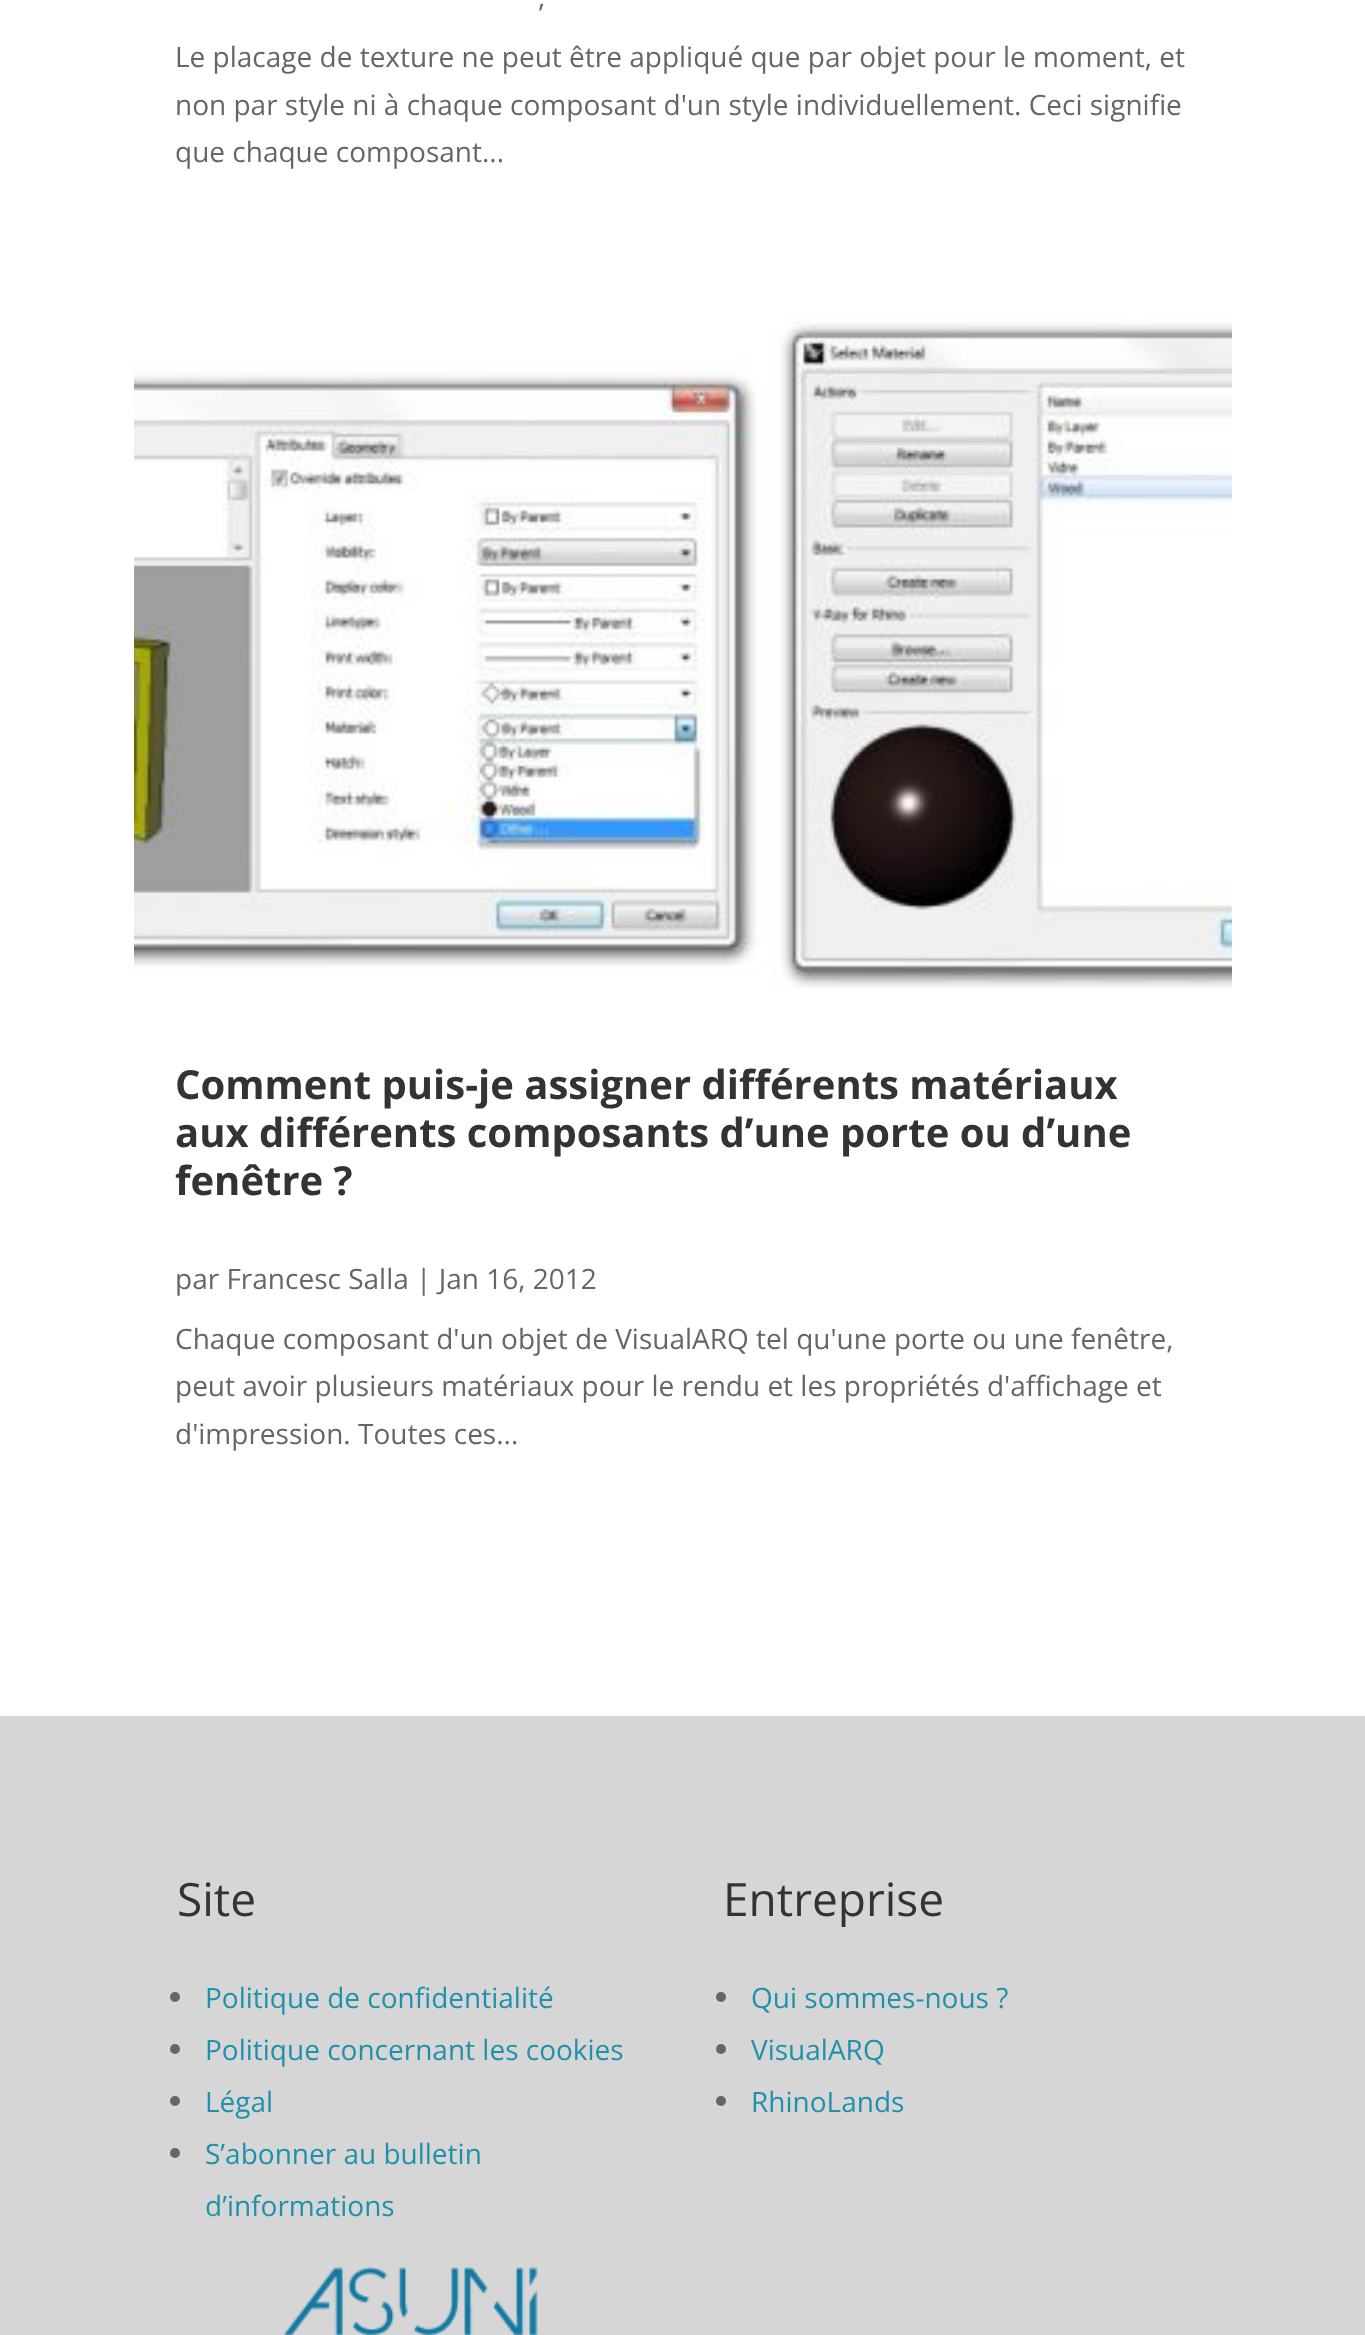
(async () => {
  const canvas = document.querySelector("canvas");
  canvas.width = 1365;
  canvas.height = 2335;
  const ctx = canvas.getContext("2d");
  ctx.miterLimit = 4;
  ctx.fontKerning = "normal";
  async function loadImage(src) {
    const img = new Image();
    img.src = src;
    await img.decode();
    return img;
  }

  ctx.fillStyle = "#ffffff";
  ctx.fillRect(0, 0, 1365, 2335);
  ctx.drawImage(await loadImage("img/1.png"), 134, 316, 1098, 674);
  ctx.fillStyle = "#d6d6d6";
  ctx.fillRect(0, 1716, 1365, 619);
  ctx.fillStyle = "#666666";
  ctx.beginPath();
  ctx.arc(175, 1997, 5, 0, Math.PI * 2);
  ctx.fill();
  ctx.beginPath();
  ctx.arc(175, 2049, 5, 0, Math.PI * 2);
  ctx.fill();
  ctx.beginPath();
  ctx.arc(175, 2101, 5, 0, Math.PI * 2);
  ctx.fill();
  ctx.beginPath();
  ctx.arc(175, 2153, 5, 0, Math.PI * 2);
  ctx.fill();
  ctx.beginPath();
  ctx.arc(721, 1997, 5, 0, Math.PI * 2);
  ctx.fill();
  ctx.beginPath();
  ctx.arc(721, 2049, 5, 0, Math.PI * 2);
  ctx.fill();
  ctx.beginPath();
  ctx.arc(721, 2101, 5, 0, Math.PI * 2);
  ctx.fill();
  ctx.drawImage(await loadImage("img/2.png"), 283, 2267, 255, 68);
  ctx.font = "28px Open Sans";
  for (const [text, x, y] of [
    [",", 538, 7],
    ["Le placage de texture ne peut être appliqué que par objet pour le moment, et", 175, 67],
    ["non par style ni à chaque composant d'un style individuellement. Ceci signifie", 175, 115],
    ["que chaque composant...", 175, 162],
  ]) {
    ctx.fillText(text, x, y);
  }
  ctx.font = "bold 40px Open Sans";
  ctx.fillStyle = "#333333";
  for (const [text, x, y] of [
    ["Comment puis-je assigner différents matériaux", 175, 1099],
    ["aux différents composants d’une porte ou d’une", 175, 1147],
    ["fenêtre ?", 175, 1195],
  ]) {
    ctx.fillText(text, x, y);
  }
  ctx.font = "28px Open Sans";
  ctx.fillStyle = "#666666";
  for (const [text, x, y] of [
    ["par Francesc Salla | Jan 16, 2012", 175, 1289],
    ["Chaque composant d'un objet de VisualARQ tel qu'une porte ou une fenêtre,", 175, 1349],
    ["peut avoir plusieurs matériaux pour le rendu et les propriétés d'affichage et", 175, 1396],
    ["d'impression. Toutes ces...", 175, 1444],
  ]) {
    ctx.fillText(text, x, y);
  }
  ctx.font = "46px Open Sans";
  ctx.fillStyle = "#333333";
  ctx.fillText("Site", 177, 1916);
  ctx.font = "28px Open Sans";
  ctx.fillStyle = "#2191ab";
  for (const [text, x, y] of [
    ["Politique de confidentialité", 205, 2008],
    ["Politique concernant les cookies", 205, 2060],
    ["Légal", 205, 2112],
    ["S’abonner au bulletin", 205, 2164],
    ["d’informations", 205, 2216],
  ]) {
    ctx.fillText(text, x, y);
  }
  ctx.font = "46px Open Sans";
  ctx.fillStyle = "#333333";
  ctx.fillText("Entreprise", 723, 1916);
  ctx.font = "28px Open Sans";
  ctx.fillStyle = "#2191ab";
  for (const [text, x, y] of [
    ["Qui sommes-nous ?", 751, 2008],
    ["VisualARQ", 751, 2060],
    ["RhinoLands", 751, 2112],
  ]) {
    ctx.fillText(text, x, y);
  }
})();
